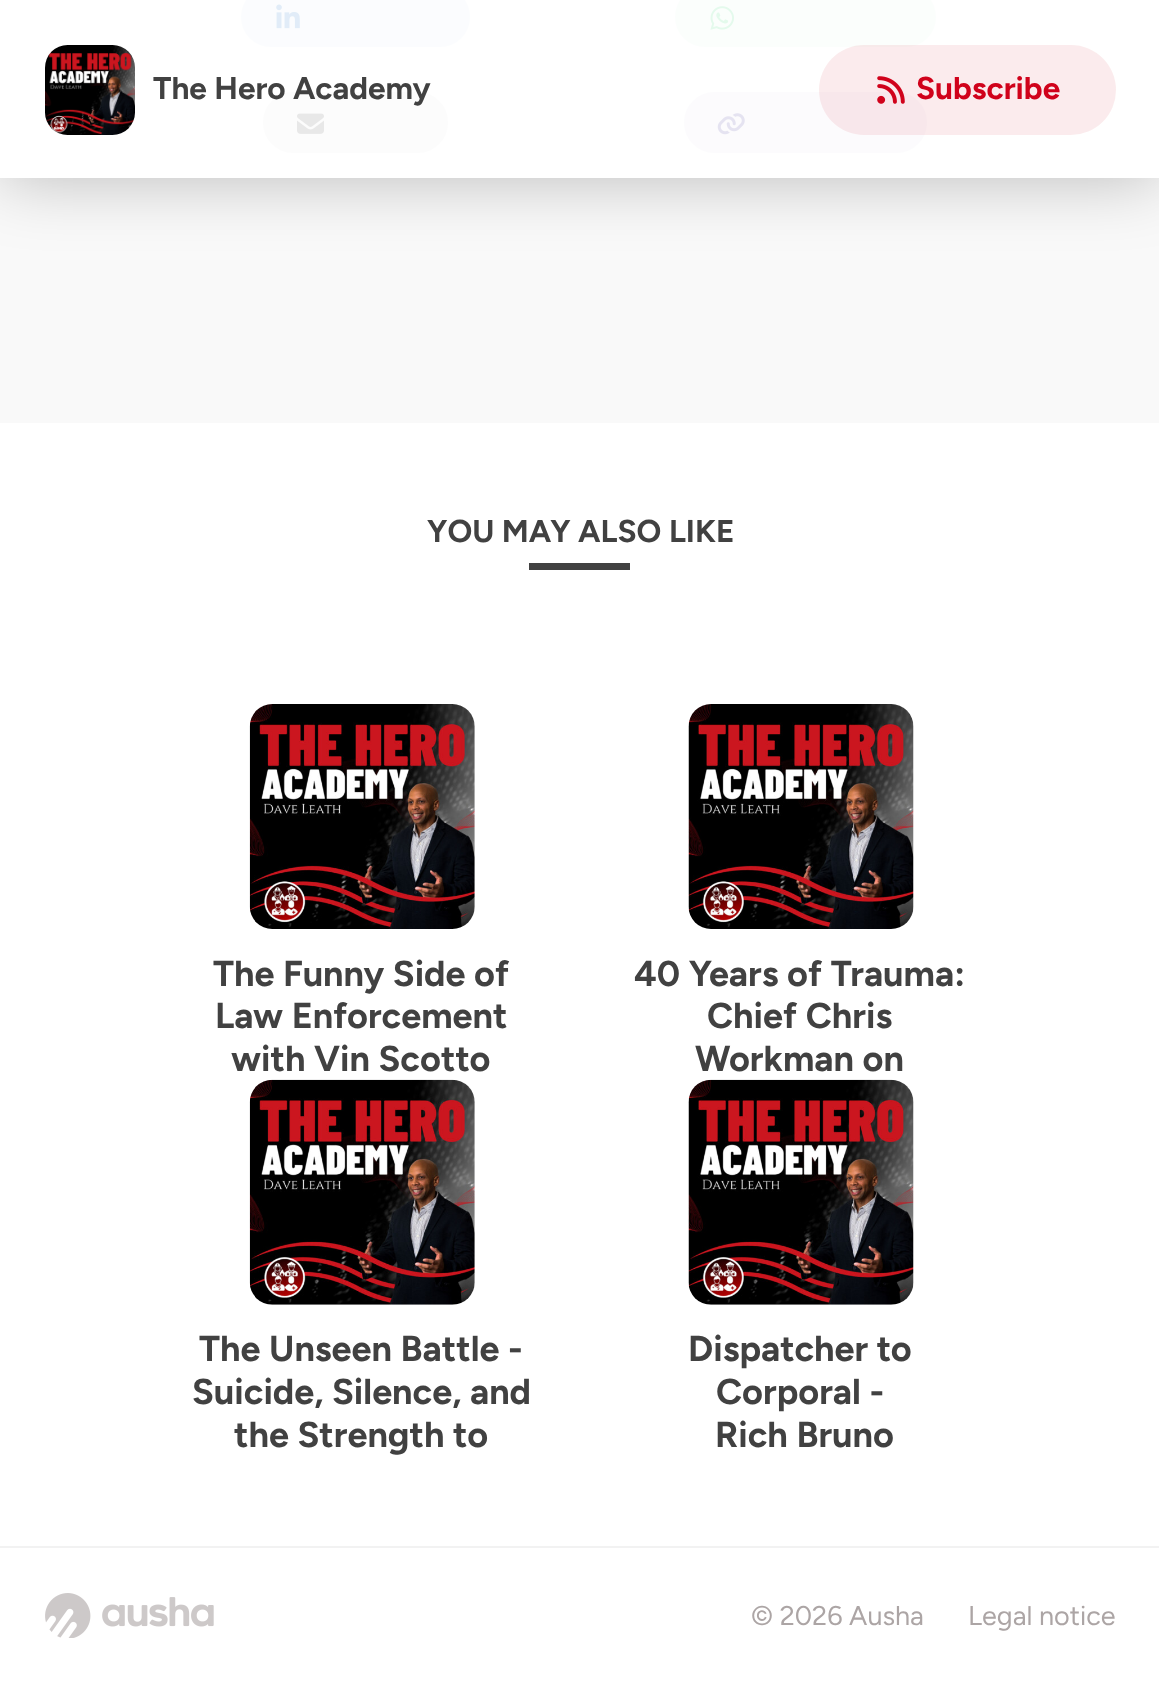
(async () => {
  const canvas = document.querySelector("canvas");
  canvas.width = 1159;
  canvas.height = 1681;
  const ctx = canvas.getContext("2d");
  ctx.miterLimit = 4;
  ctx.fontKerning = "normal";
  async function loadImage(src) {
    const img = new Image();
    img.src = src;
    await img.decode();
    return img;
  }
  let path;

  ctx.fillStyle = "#ffffff";
  ctx.fillRect(0, 0, 1159, 1681);
  ctx.fillStyle = "#f9f9f9";
  ctx.fillRect(0, 0, 1159, 423);
  ctx.fillStyle = "#dbe7f2";
  ctx.beginPath();
  ctx.roundRect(241, -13, 229, 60, 30);
  ctx.fill();
  ctx.drawImage(await loadImage("img/3.png"), 276, 4, 24, 25);
  ctx.fillStyle = "#def4e7";
  ctx.beginPath();
  ctx.roundRect(675, -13, 261, 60, 30);
  ctx.fill();
  ctx.drawImage(await loadImage("img/4.png"), 710, 6, 25, 24);
  ctx.fillStyle = "#e2e2e2";
  ctx.beginPath();
  ctx.roundRect(263, 92, 185, 61, 30.5);
  ctx.fill();
  ctx.drawImage(await loadImage("img/5.png"), 297, 113, 27, 21);
  ctx.fillStyle = "#e0ddeb";
  ctx.beginPath();
  ctx.roundRect(684, 92, 243, 61, 30.5);
  ctx.fill();
  ctx.drawImage(await loadImage("img/6.png"), 717, 113, 28, 22);
  ctx.save();
  path = new Path2D("M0 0H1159V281H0ZM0 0H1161V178H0Z");
  ctx.clip(path, "evenodd");
  ctx.fillStyle = "rgba(0, 0, 0, 0.25)";
  ctx.filter = "blur(34px)";
  ctx.beginPath();
  ctx.rect(0, 0, 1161, 178);
  ctx.fill();
  ctx.filter = "none";
  ctx.restore();
  ctx.fillStyle = "rgba(255, 255, 255, 0.88)";
  ctx.fillRect(0, 0, 1159, 178);
  ctx.drawImage(await loadImage("img/1.png"), 45, 45, 90, 90);
  ctx.fillStyle = "rgba(208, 2, 27, 0.08)";
  ctx.beginPath();
  ctx.roundRect(819, 45, 297, 90, 45);
  ctx.fill();
  ctx.drawImage(await loadImage("img/2.png"), 877, 76, 28, 28);
  ctx.fillStyle = "#414141";
  ctx.fillRect(529, 563, 101, 7);
  ctx.drawImage(await loadImage("img/7.png"), 249, 704, 226, 225);
  ctx.drawImage(await loadImage("img/8.png"), 688, 704, 226, 225);
  ctx.drawImage(await loadImage("img/9.png"), 249, 1079, 226, 226);
  ctx.drawImage(await loadImage("img/10.png"), 688, 1079, 226, 226);
  ctx.fillStyle = "#f2f2f2";
  ctx.fillRect(0, 1546, 1159, 2);
  ctx.drawImage(await loadImage("img/11.png"), 45, 1593, 169, 45);
  ctx.font = "bold 31.5px Figtree";
  ctx.fillStyle = "#414141";
  ctx.fillText("The Hero Academy", 153, 99);
  ctx.fillStyle = "#d0021b";
  ctx.fillText("Subscribe", 916, 99);
  ctx.fillStyle = "#414141";
  ctx.fillText("YOU MAY ALSO LIKE", 427, 542);
  ctx.font = "bold 36px Figtree";
  for (const [text, x, y] of [
    ["The Funny Side of", 213, 986],
    ["Law Enforcement", 215, 1028],
    ["with Vin Scotto", 231, 1071],
    ["40 Years of Trauma:", 634, 986],
    ["Chief Chris", 707, 1028],
    ["Workman on", 695, 1071],
    ["The Unseen Battle -", 199, 1361],
    ["Suicide, Silence, and", 192, 1404],
    ["the Strength to", 234, 1447],
    ["Dispatcher to", 688, 1361],
    ["Corporal -", 716, 1404],
    ["Rich Bruno", 715, 1447],
  ]) {
    ctx.fillText(text, x, y);
  }
  ctx.font = "27px Figtree";
  ctx.fillStyle = "#aca5a5";
  ctx.fillText("© 2026 Ausha", 751, 1625);
  ctx.fillText("Legal notice", 968, 1625);
})();
